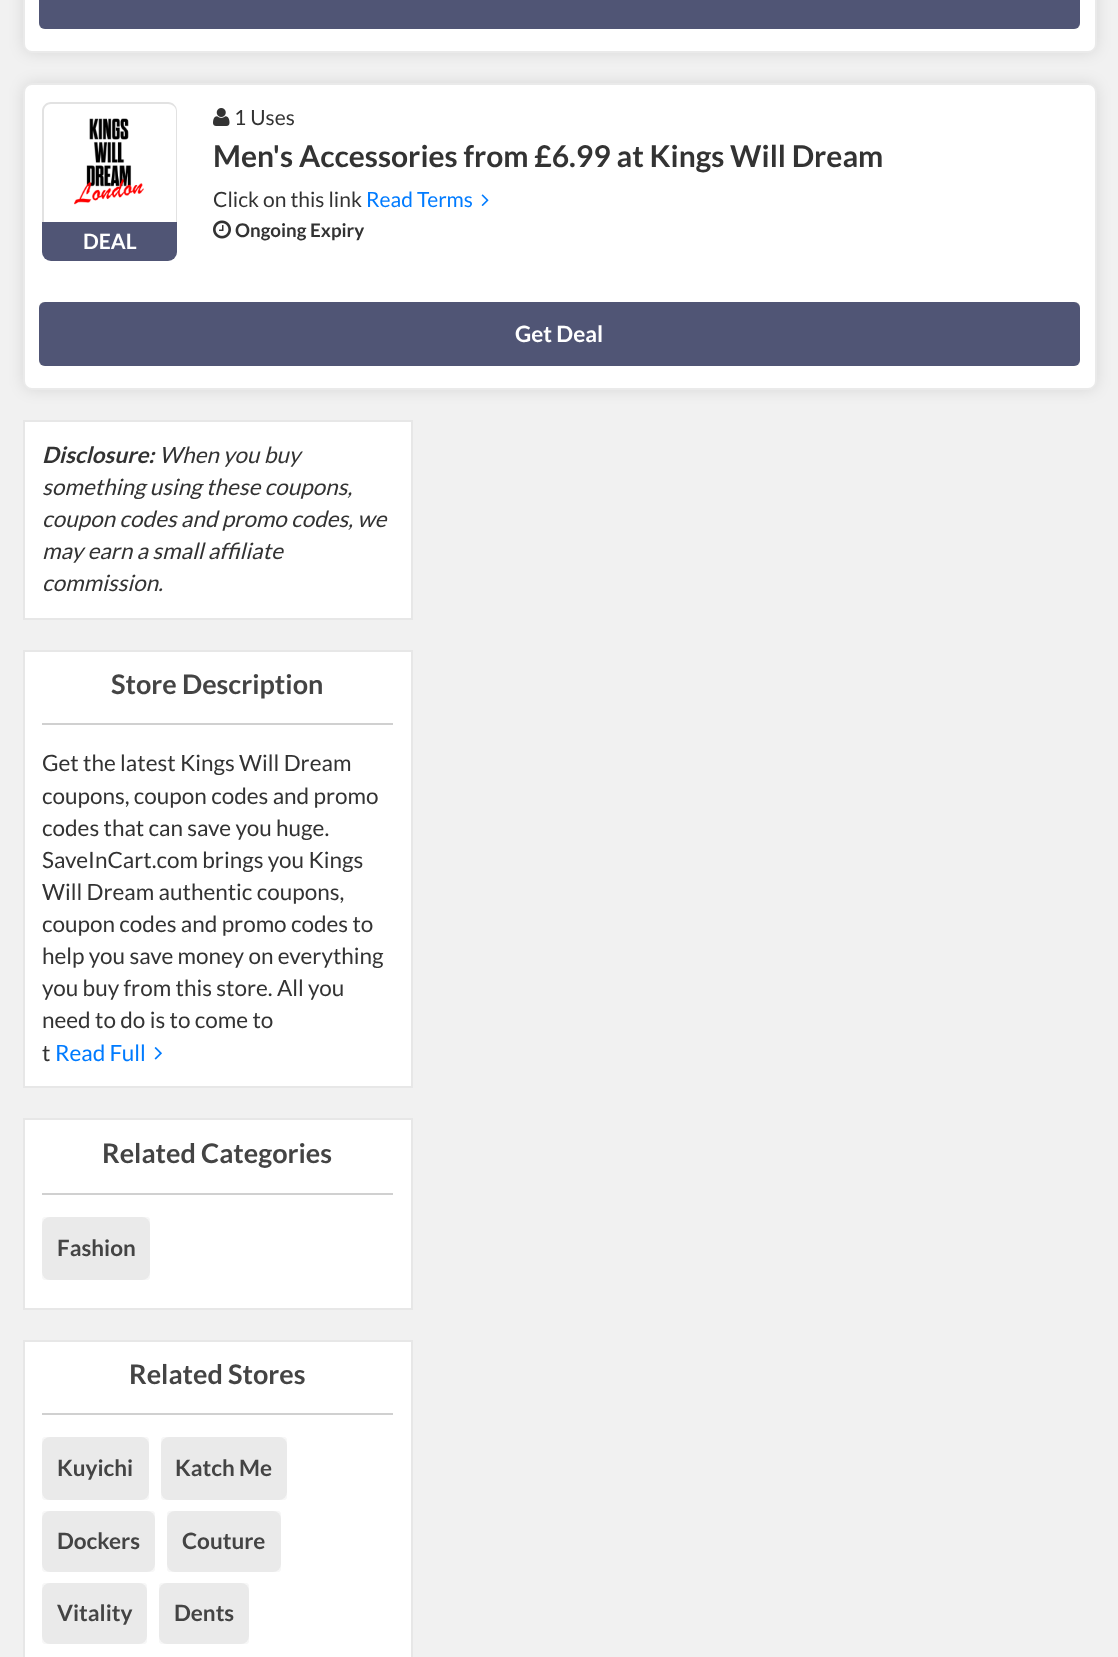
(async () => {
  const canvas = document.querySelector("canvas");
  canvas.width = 1118;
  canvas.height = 1657;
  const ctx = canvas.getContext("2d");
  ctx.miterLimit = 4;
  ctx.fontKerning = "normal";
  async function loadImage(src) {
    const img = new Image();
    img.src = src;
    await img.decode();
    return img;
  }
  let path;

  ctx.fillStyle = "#f1f1f1";
  ctx.fillRect(0, 0, 1118, 1657);
  ctx.fillStyle = "rgba(0, 0, 0, 0.1)";
  ctx.filter = "blur(7.5px)";
  ctx.beginPath();
  ctx.roundRect(23, -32, 1074, 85, 9);
  ctx.fill();
  ctx.filter = "none";
  ctx.fillStyle = "#ffffff";
  ctx.beginPath();
  ctx.roundRect(24, -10, 1072, 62, 8);
  ctx.fill();
  ctx.strokeStyle = "#eaeaea";
  ctx.lineWidth = 2;
  ctx.stroke();
  ctx.fillStyle = "#d9d9d9";
  ctx.beginPath();
  ctx.roundRect(39, -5, 1041, 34, 5);
  ctx.fill();
  ctx.fillStyle = "#505575";
  ctx.beginPath();
  ctx.roundRect(39, -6, 1041, 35, 6);
  ctx.fill();
  ctx.fillStyle = "rgba(0, 0, 0, 0.1)";
  ctx.filter = "blur(7.5px)";
  ctx.beginPath();
  ctx.roundRect(23, 83, 1074, 307, 9);
  ctx.fill();
  ctx.filter = "none";
  ctx.fillStyle = "#ffffff";
  ctx.beginPath();
  ctx.roundRect(24, 84, 1072, 305, 8);
  ctx.fill();
  ctx.stroke();
  ctx.fillStyle = "#e2e2e2";
  path = new Path2D("M51 102H168C173 102 177 106 177 111V222H42V111C42 106 46 102 51 102ZM51 104H168C172 104 176 107 176 111V222H44V111C44 107 47 104 51 104Z");
  ctx.fill(path, "evenodd");
  ctx.drawImage(await loadImage("img/1.png"), 74, 118, 70, 87);
  ctx.fillStyle = "#505575";
  ctx.beginPath();
  ctx.roundRect(42, 222, 135, 39, [0, 0, 9, 9]);
  ctx.fill();
  ctx.drawImage(await loadImage("img/2.png"), 213, 108, 17, 18);
  ctx.drawImage(await loadImage("img/3.png"), 481, 194, 8, 12);
  ctx.drawImage(await loadImage("img/4.png"), 213, 220, 18, 19);
  ctx.fillStyle = "#d9d9d9";
  ctx.beginPath();
  ctx.roundRect(39, 302, 1041, 64, 5);
  ctx.fill();
  ctx.fillStyle = "#505575";
  ctx.beginPath();
  ctx.roundRect(39, 302, 1041, 64, 6);
  ctx.fill();
  ctx.fillStyle = "#ffffff";
  ctx.beginPath();
  ctx.rect(24, 421, 388, 198);
  ctx.fill();
  ctx.strokeStyle = "#e7e7e7";
  ctx.stroke();
  ctx.beginPath();
  ctx.rect(24, 651, 388, 436);
  ctx.fill();
  ctx.stroke();
  ctx.fillStyle = "#d0d0d0";
  ctx.fillRect(42, 723, 351, 2);
  ctx.drawImage(await loadImage("img/5.png"), 154, 1047, 8, 13);
  ctx.fillStyle = "#ffffff";
  ctx.beginPath();
  ctx.rect(24, 1119, 388, 190);
  ctx.fill();
  ctx.stroke();
  ctx.fillStyle = "#d0d0d0";
  ctx.fillRect(42, 1193, 351, 2);
  ctx.fillStyle = "#f7f7f7";
  ctx.beginPath();
  ctx.roundRect(42, 1217, 108, 63, 3);
  ctx.fill();
  ctx.fillStyle = "#eaeaea";
  ctx.beginPath();
  ctx.roundRect(42, 1217, 108, 63, 8);
  ctx.fill();
  ctx.fillStyle = "#ffffff";
  ctx.beginPath();
  ctx.rect(24, 1341, 388, 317);
  ctx.fill();
  ctx.stroke();
  ctx.fillStyle = "#d0d0d0";
  ctx.fillRect(42, 1413, 351, 2);
  ctx.fillStyle = "#f7f7f7";
  ctx.beginPath();
  ctx.roundRect(42, 1437, 107, 63, 3);
  ctx.fill();
  ctx.fillStyle = "#eaeaea";
  ctx.beginPath();
  ctx.roundRect(42, 1437, 107, 63, 8);
  ctx.fill();
  ctx.fillStyle = "#f7f7f7";
  ctx.beginPath();
  ctx.roundRect(161, 1437, 126, 63, 3);
  ctx.fill();
  ctx.fillStyle = "#eaeaea";
  ctx.beginPath();
  ctx.roundRect(161, 1437, 126, 63, 8);
  ctx.fill();
  ctx.fillStyle = "#f7f7f7";
  ctx.beginPath();
  ctx.roundRect(42, 1511, 113, 61, 3);
  ctx.fill();
  ctx.fillStyle = "#eaeaea";
  ctx.beginPath();
  ctx.roundRect(42, 1511, 113, 61, 8);
  ctx.fill();
  ctx.fillStyle = "#f7f7f7";
  ctx.beginPath();
  ctx.roundRect(167, 1511, 114, 61, 3);
  ctx.fill();
  ctx.fillStyle = "#eaeaea";
  ctx.beginPath();
  ctx.roundRect(167, 1511, 114, 61, 8);
  ctx.fill();
  ctx.fillStyle = "#f7f7f7";
  ctx.beginPath();
  ctx.roundRect(42, 1583, 105, 61, 3);
  ctx.fill();
  ctx.fillStyle = "#eaeaea";
  ctx.beginPath();
  ctx.roundRect(42, 1583, 105, 61, 8);
  ctx.fill();
  ctx.fillStyle = "#f7f7f7";
  ctx.beginPath();
  ctx.roundRect(159, 1583, 90, 61, 3);
  ctx.fill();
  ctx.fillStyle = "#eaeaea";
  ctx.beginPath();
  ctx.roundRect(159, 1583, 90, 61, 8);
  ctx.fill();
  ctx.font = "bold 21px Lato";
  ctx.fillStyle = "#ffffff";
  ctx.fillText("DEAL", 83, 249);
  ctx.font = "21px Lato";
  ctx.fillStyle = "#333333";
  ctx.fillText("1 Uses", 234, 125);
  ctx.font = "bold 30px Lato";
  ctx.fillText("Men's Accessories from £6.99 at Kings Will Dream", 213, 167);
  ctx.font = "21px Lato";
  ctx.fillText("Click on this link", 213, 207);
  ctx.fillStyle = "#007bff";
  ctx.fillText("Read Terms", 366, 207);
  ctx.font = "bold 18.75px Lato";
  ctx.fillStyle = "#333333";
  ctx.fillText("Ongoing Expiry", 235, 237);
  ctx.font = "bold 22.5px Lato";
  ctx.fillStyle = "#ffffff";
  ctx.fillText("Get Deal", 515, 342);
  ctx.font = "italic bold 22.5px Lato";
  ctx.fillStyle = "#333333";
  ctx.fillText("Disclosure:", 42, 463);
  ctx.font = "italic 22.5px Lato";
  for (const [text, x, y] of [
    ["When you buy", 159, 463],
    ["something using these coupons,", 42, 495],
    ["coupon codes and promo codes, we", 42, 527],
    ["may earn a small affiliate", 42, 559],
    ["commission.", 42, 591],
  ]) {
    ctx.fillText(text, x, y);
  }
  ctx.font = "bold 27px Lato";
  ctx.fillStyle = "#444444";
  ctx.fillText("Store Description", 111, 694);
  ctx.font = "22.5px Lato";
  ctx.fillStyle = "#333333";
  for (const [text, x, y] of [
    ["Get the latest Kings Will Dream", 42, 771],
    ["coupons, coupon codes and promo", 42, 804],
    ["codes that can save you huge.", 42, 836],
    ["SaveInCart.com brings you Kings", 42, 868],
    ["Will Dream authentic coupons,", 42, 900],
    ["coupon codes and promo codes to", 42, 932],
    ["help you save money on everything", 42, 964],
    ["you buy from this store. All you", 42, 996],
    ["need to do is to come to", 42, 1028],
    ["t", 42, 1061],
  ]) {
    ctx.fillText(text, x, y);
  }
  ctx.fillStyle = "#007bff";
  ctx.fillText("Read Full", 55, 1061);
  ctx.font = "bold 27px Lato";
  ctx.fillStyle = "#444444";
  ctx.fillText("Related Categories", 102, 1163);
  ctx.font = "bold 22.5px Lato";
  ctx.fillText("Fashion", 57, 1256);
  ctx.font = "bold 27px Lato";
  ctx.fillText("Related Stores", 129, 1384);
  ctx.font = "bold 22.5px Lato";
  for (const [text, x, y] of [
    ["Kuyichi", 57, 1476],
    ["Katch Me", 175, 1476],
    ["Dockers", 57, 1549],
    ["Couture", 182, 1549],
    ["Vitality", 57, 1621],
    ["Dents", 174, 1621],
  ]) {
    ctx.fillText(text, x, y);
  }
})();
